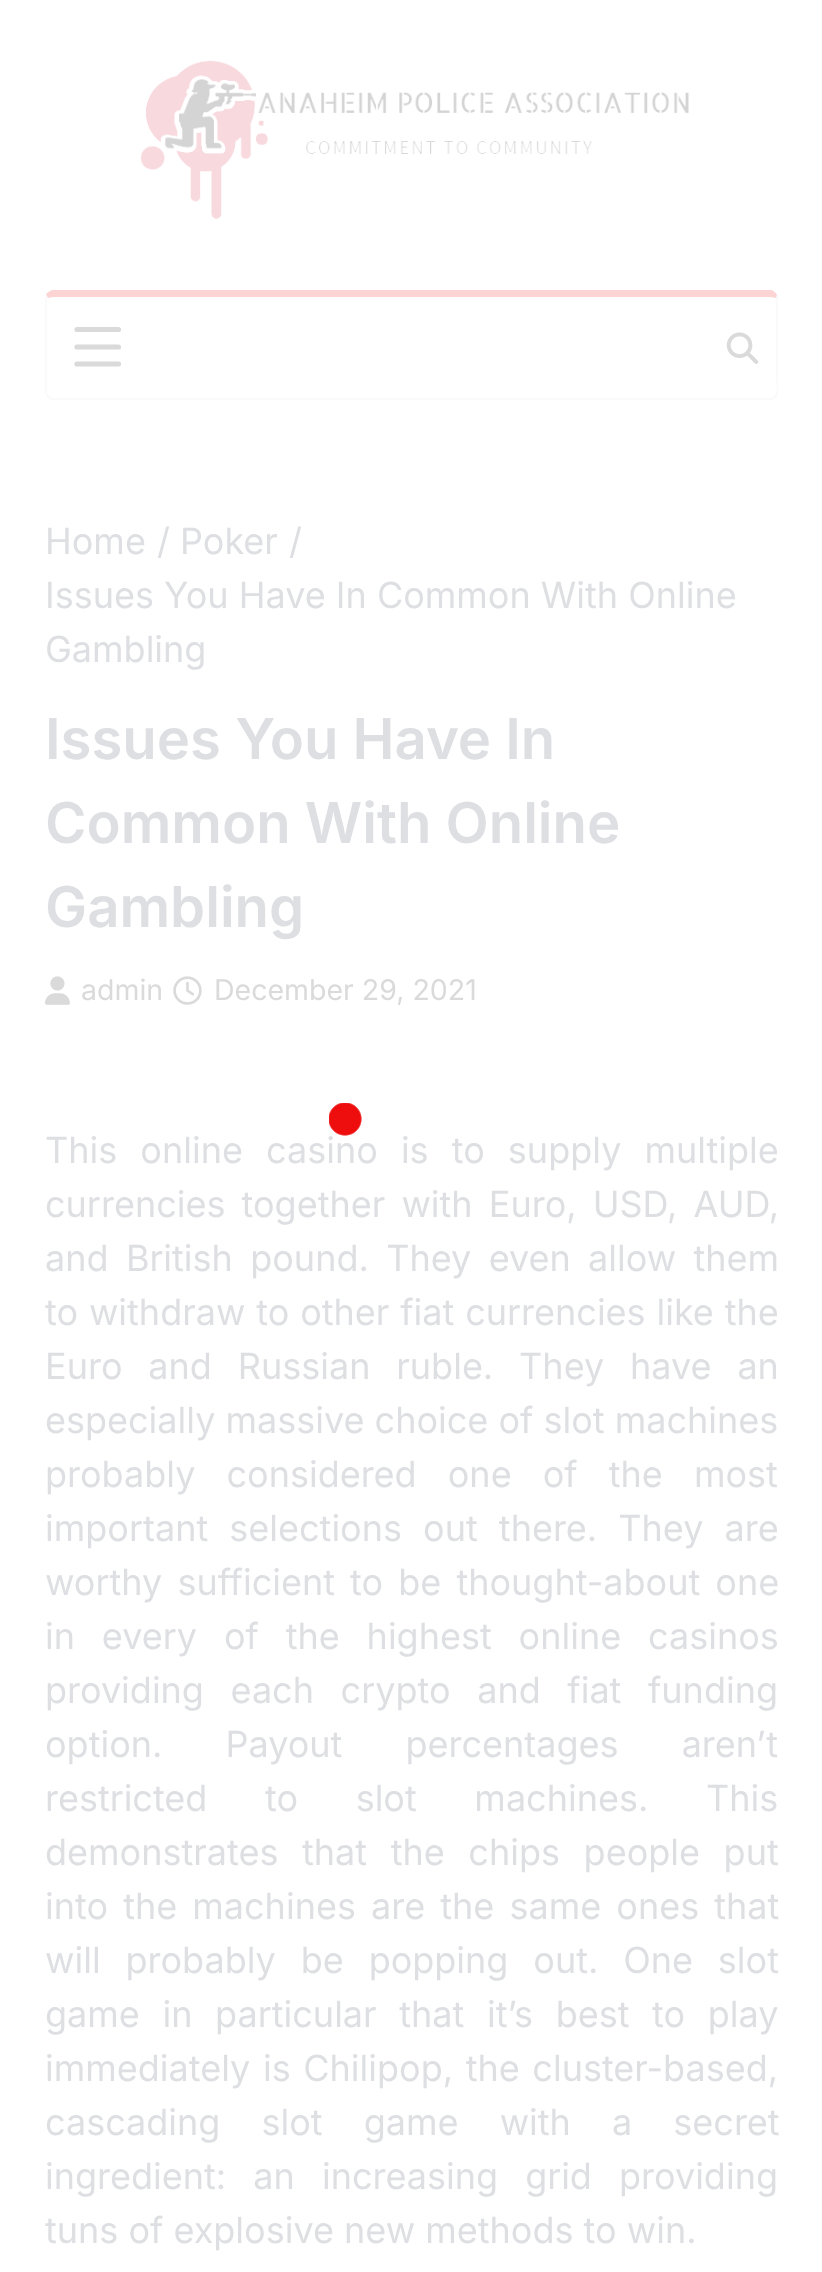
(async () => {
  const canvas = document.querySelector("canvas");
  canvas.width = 822;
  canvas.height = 2272;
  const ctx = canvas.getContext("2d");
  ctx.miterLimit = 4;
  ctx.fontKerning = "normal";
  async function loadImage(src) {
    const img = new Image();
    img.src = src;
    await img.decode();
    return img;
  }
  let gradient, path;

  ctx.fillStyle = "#ffffff";
  ctx.fillRect(0, 0, 822, 2272);
  ctx.drawImage(await loadImage("img/1.png"), 140, 60, 550, 159);
  ctx.fillStyle = "#fcd4d4";
  path = new Path2D("M54 297C51 297 49 298 48 298L46 294C48 292 50 291 52 290H772C774 291 776 293 777 295L776 298C775 298 772 297 770 297Z");
  ctx.fill(path);
  ctx.fillStyle = "rgba(238, 238, 238, 0.3)";
  path = new Path2D("M777 295C778 296 778 297 778 299V392C778 394 777 396 776 398L774 396C779 392 776 379 776 376V298Z");
  ctx.fill(path);
  path = new Path2D("M776 398C774 399 772 400 770 400H54C52 400 49 399 48 398L49 396C50 397 52 398 54 398H770C772 398 773 397 774 396Z");
  ctx.fill(path);
  path = new Path2D("M45 299V392C45 394 46 396 48 398L49 396C48 395 47 394 47 392V299L48 298L46 294Z");
  ctx.fill(path);
  path = new Path2D("M77 329.5H118.5M77 347H118.5M77 364H118.5");
  ctx.strokeStyle = "#dadada";
  ctx.lineWidth = 5.2;
  ctx.lineCap = "round";
  ctx.lineJoin = "round";
  ctx.stroke(path);
  ctx.drawImage(await loadImage("img/2.png"), 726, 332, 33, 32);
  ctx.drawImage(await loadImage("img/3.png"), 45, 976, 25, 29);
  ctx.drawImage(await loadImage("img/4.png"), 173, 976, 29, 29);
  ctx.font = "36px Inter";
  ctx.fillStyle = "#dedfe2";
  for (const [text, x, y] of [
    ["Home", 45, 554],
    ["/", 157, 554],
    ["Poker", 180, 554],
    ["/", 289, 554],
    ["Issues You Have In Common With Online", 45, 608],
    ["Gambling", 45, 662],
  ]) {
    ctx.fillText(text, x, y);
  }
  ctx.font = "600 56.25px Inter";
  for (const [text, x, y] of [
    ["Issues You Have In", 45, 759],
    ["Common With Online", 45, 843],
    ["Gambling", 45, 927],
  ]) {
    ctx.fillText(text, x, y);
  }
  ctx.font = "28.5px Inter";
  ctx.fillStyle = "#dadada";
  ctx.fillText("admin", 81, 1000);
  ctx.fillText("December 29, 2021", 214, 1000);
  ctx.wordSpacing = "13px";
  ctx.font = "36px Inter";
  ctx.fillStyle = "#dedfe2";
  ctx.fillText("This online casino is to supply multiple", 45, 1163);
  ctx.wordSpacing = "6px";
  ctx.fillText("currencies together with Euro, USD, AUD,", 45, 1217);
  ctx.wordSpacing = "7.25px";
  ctx.fillText("and British pound. They even allow them", 45, 1271);
  ctx.wordSpacing = "0.75px";
  ctx.fillText("to withdraw to other fiat currencies like the", 45, 1325);
  ctx.wordSpacing = "15.75px";
  ctx.fillText("Euro and Russian ruble. They have an", 45, 1379);
  ctx.wordSpacing = "0px";
  ctx.fillText("especially massive choice of slot machines", 45, 1433);
  ctx.wordSpacing = "21px";
  ctx.fillText("probably considered one of the most", 45, 1487);
  ctx.wordSpacing = "11px";
  ctx.fillText("important selections out there. They are", 45, 1541);
  ctx.wordSpacing = "5px";
  ctx.fillText("worthy sufficient to be thought-about one", 45, 1595);
  ctx.wordSpacing = "16.75px";
  ctx.fillText("in every of the highest online casinos", 45, 1649);
  ctx.wordSpacing = "16.5px";
  ctx.fillText("providing each crypto and fiat funding", 45, 1703);
  ctx.wordSpacing = "53px";
  ctx.fillText("option. Payout percentages aren’t", 45, 1757);
  ctx.wordSpacing = "47.5px";
  ctx.fillText("restricted to slot machines. This", 45, 1811);
  ctx.wordSpacing = "13.5px";
  ctx.fillText("demonstrates that the chips people put", 45, 1865);
  ctx.wordSpacing = "5px";
  ctx.fillText("into the machines are the same ones that", 45, 1919);
  ctx.wordSpacing = "14.75px";
  ctx.fillText("will probably be popping out. One slot", 45, 1973);
  ctx.wordSpacing = "12.5px";
  ctx.fillText("game in particular that it’s best to play", 45, 2027);
  ctx.wordSpacing = "2.5px";
  ctx.fillText("immediately is Chilipop, the cluster-based,", 45, 2081);
  ctx.wordSpacing = "31px";
  ctx.fillText("cascading slot game with a secret", 45, 2135);
  ctx.wordSpacing = "17px";
  ctx.fillText("ingredient: an increasing grid providing", 45, 2189);
  ctx.wordSpacing = "0px";
  ctx.fillText("tuns of explosive new methods to win.", 45, 2243);
  gradient = ctx.createRadialGradient(345, 1119, 0, 345, 1119, 17);
  gradient.addColorStop(0.9, "#f67a7a");
  gradient.addColorStop(1, "#ffffff");
  ctx.fillStyle = gradient;
  ctx.fillRect(329, 1103, 33, 33);
  gradient = ctx.createRadialGradient(345, 1119, 0, 345, 1119, 17);
  gradient.addColorStop(0.9, "rgba(237, 0, 0, 0.52)");
  gradient.addColorStop(1, "rgba(237, 0, 0, 0)");
  ctx.fillStyle = gradient;
  ctx.fillRect(329, 1103, 33, 33);
  ctx.fillRect(329, 1103, 33, 33);
  ctx.fillRect(329, 1103, 33, 33);
})();
